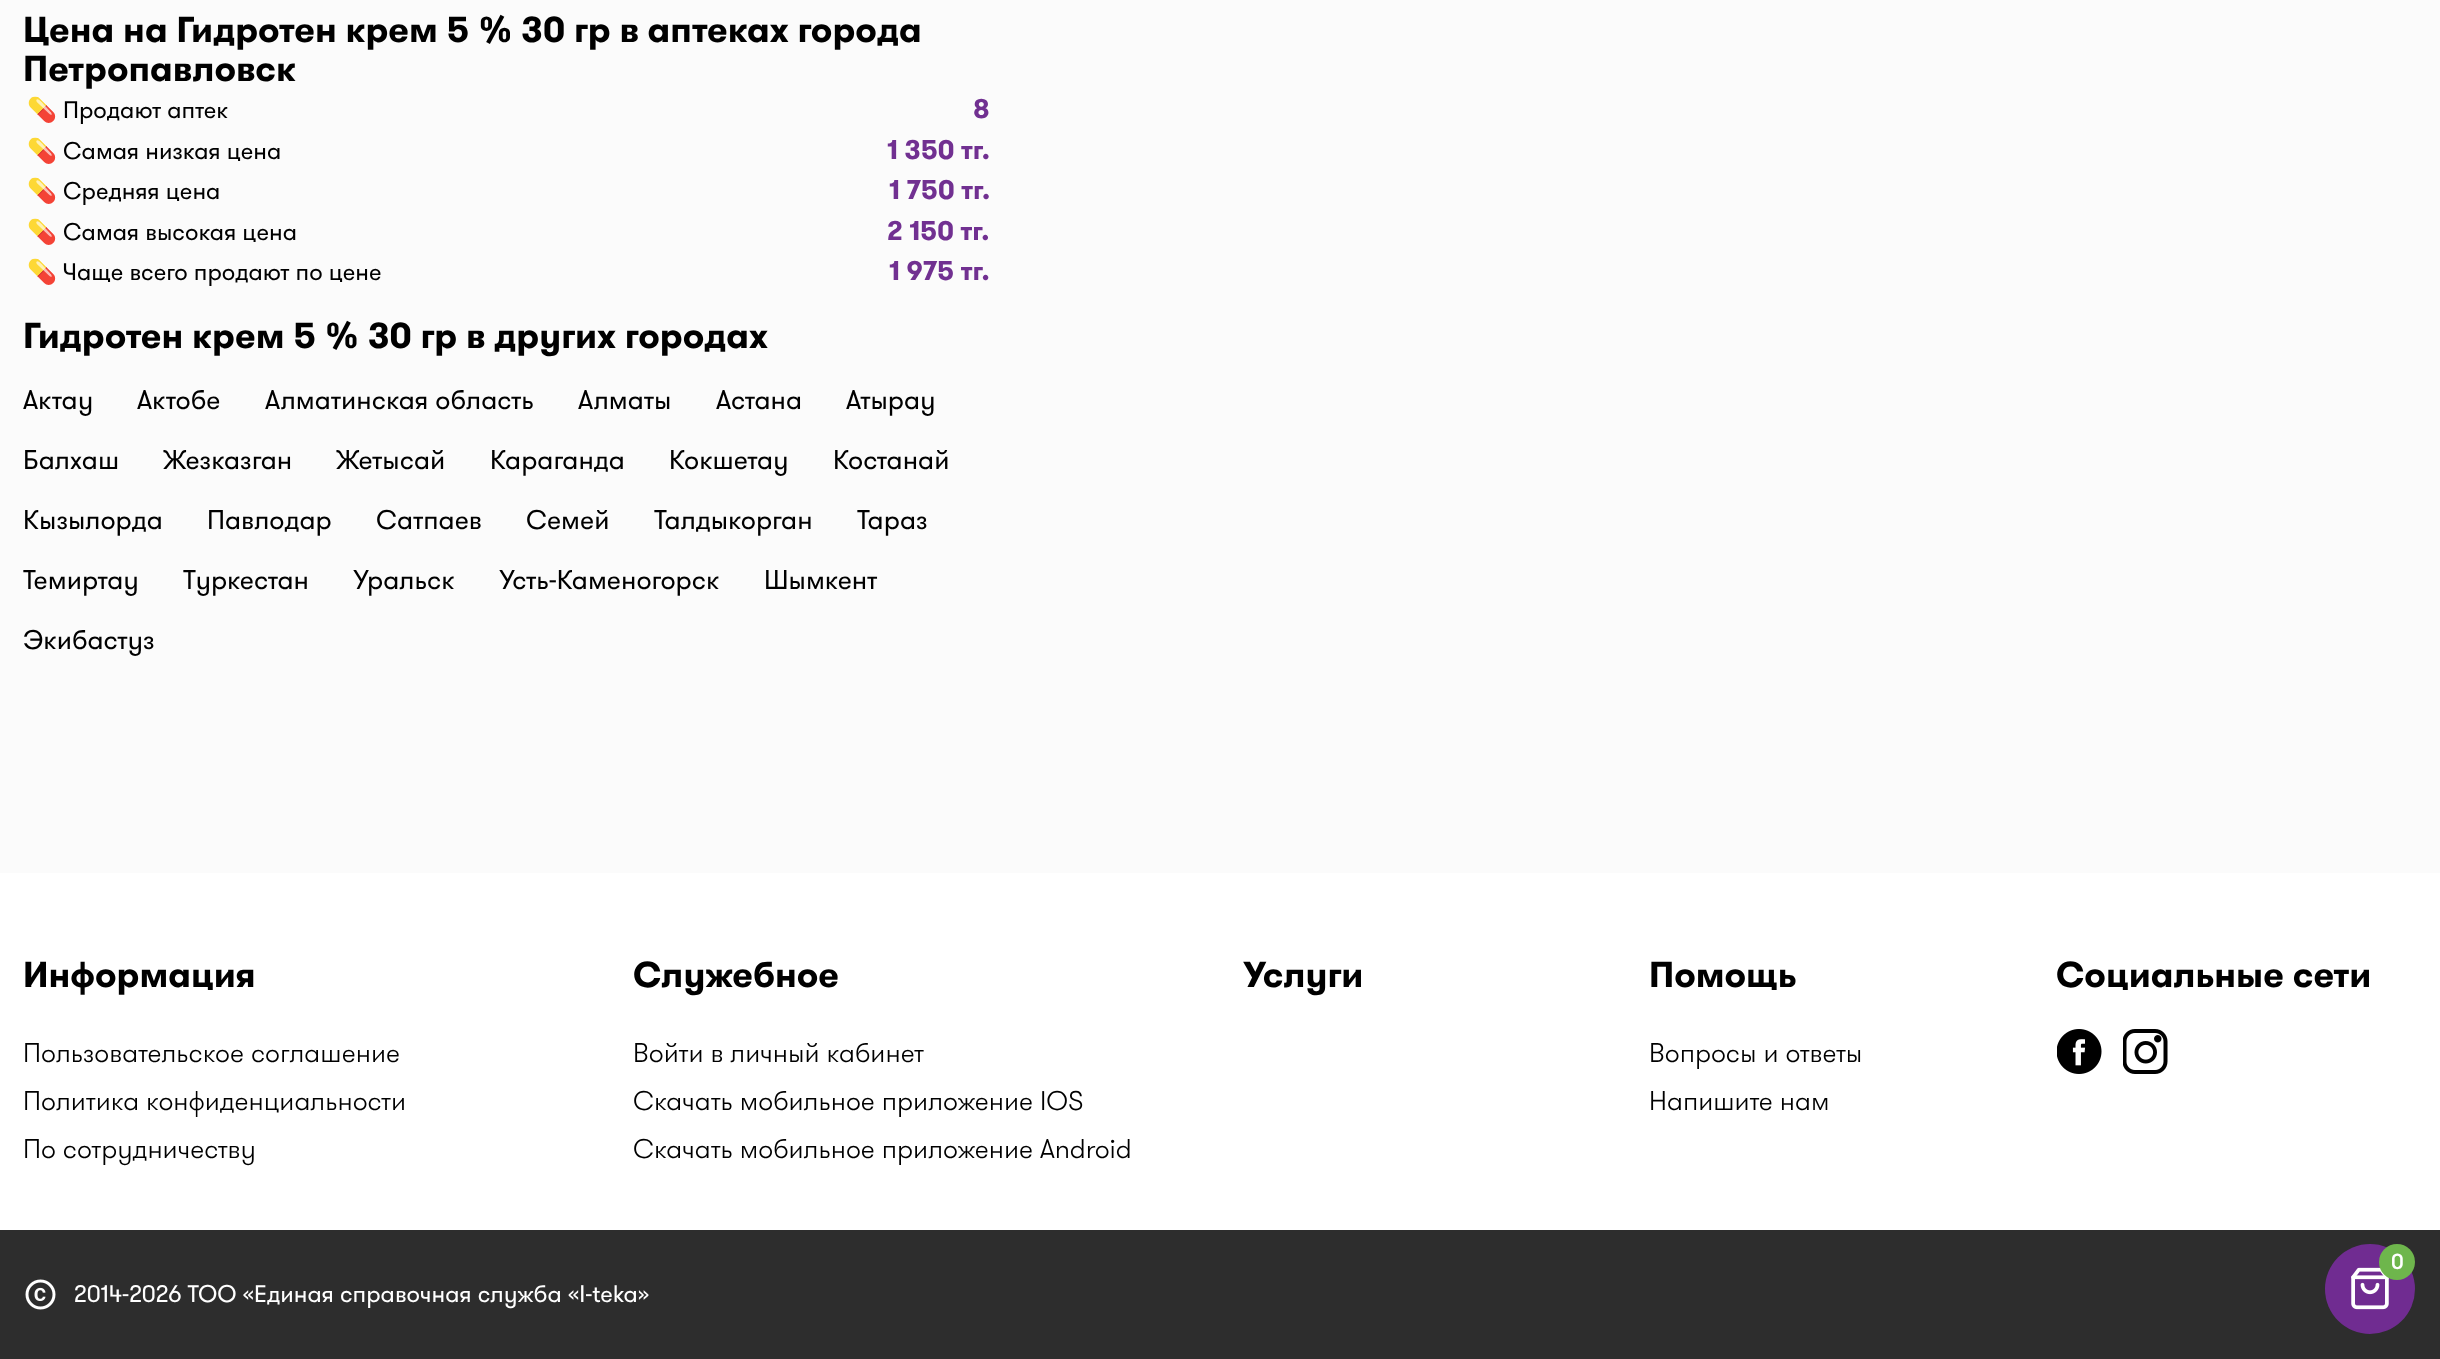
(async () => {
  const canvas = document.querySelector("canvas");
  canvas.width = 2440;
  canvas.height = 1359;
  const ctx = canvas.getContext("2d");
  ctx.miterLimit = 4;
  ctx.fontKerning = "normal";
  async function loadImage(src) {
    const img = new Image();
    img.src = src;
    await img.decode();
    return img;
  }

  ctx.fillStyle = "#fbfbfb";
  ctx.fillRect(0, 0, 2440, 1359);
  ctx.fillStyle = "#ffffff";
  ctx.fillRect(0, 873, 2440, 357);
  ctx.drawImage(await loadImage("img/1.png"), 2057, 1029, 45, 45);
  ctx.drawImage(await loadImage("img/2.png"), 2123, 1029, 45, 45);
  ctx.fillStyle = "#2d2d2d";
  ctx.fillRect(0, 1230, 2440, 129);
  ctx.drawImage(await loadImage("img/3.png"), 25, 1279, 31, 31);
  ctx.fillStyle = "#702c91";
  ctx.beginPath();
  ctx.arc(2370, 1289, 45, 0, Math.PI * 2);
  ctx.fill();
  ctx.drawImage(await loadImage("img/4.png"), 2351, 1267, 38, 43);
  ctx.fillStyle = "#6eb64c";
  ctx.beginPath();
  ctx.arc(2397, 1262, 18, 0, Math.PI * 2);
  ctx.fill();
  ctx.font = "bold 36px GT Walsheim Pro";
  ctx.fillStyle = "#000000";
  ctx.fillText("Цена на Гидротен крем 5 % 30 гр в аптеках города", 23, 42);
  ctx.fillText("Петропавловск", 23, 81);
  ctx.font = "24px Noto Color Emoji";
  ctx.fillText("💊", 27, 118);
  ctx.font = "24px GT Walsheim Pro";
  ctx.fillText("Продают аптек", 63, 118);
  ctx.font = "bold 27px GT Walsheim Pro";
  ctx.fillStyle = "#713091";
  ctx.fillText("8", 973, 118);
  ctx.font = "24px Noto Color Emoji";
  ctx.fillStyle = "#000000";
  ctx.fillText("💊", 27, 159);
  ctx.font = "24px GT Walsheim Pro";
  ctx.fillText("Самая низкая цена", 63, 159);
  ctx.font = "bold 27px GT Walsheim Pro";
  ctx.fillStyle = "#713091";
  ctx.fillText("1 350 тг.", 887, 159);
  ctx.font = "24px Noto Color Emoji";
  ctx.fillStyle = "#000000";
  ctx.fillText("💊", 27, 199);
  ctx.font = "24px GT Walsheim Pro";
  ctx.fillText("Средняя цена", 63, 199);
  ctx.font = "bold 27px GT Walsheim Pro";
  ctx.fillStyle = "#713091";
  ctx.fillText("1 750 тг.", 889, 199);
  ctx.font = "24px Noto Color Emoji";
  ctx.fillStyle = "#000000";
  ctx.fillText("💊", 27, 240);
  ctx.font = "24px GT Walsheim Pro";
  ctx.fillText("Самая высокая цена", 63, 240);
  ctx.font = "bold 27px GT Walsheim Pro";
  ctx.fillStyle = "#713091";
  ctx.fillText("2 150 тг.", 887, 240);
  ctx.font = "24px Noto Color Emoji";
  ctx.fillStyle = "#000000";
  ctx.fillText("💊", 27, 280);
  ctx.font = "24px GT Walsheim Pro";
  ctx.fillText("Чаще всего продают по цене", 63, 280);
  ctx.font = "bold 27px GT Walsheim Pro";
  ctx.fillStyle = "#713091";
  ctx.fillText("1 975 тг.", 889, 280);
  ctx.font = "bold 36px GT Walsheim Pro";
  ctx.fillStyle = "#000000";
  ctx.fillText("Гидротен крем 5 % 30 гр в других городах", 23, 348);
  ctx.font = "27px GT Walsheim Pro";
  for (const [text, x, y] of [
    ["Актау", 23, 409],
    ["Актобе", 137, 409],
    ["Алматинская область", 265, 409],
    ["Алматы", 578, 409],
    ["Астана", 716, 409],
    ["Атырау", 846, 409],
    ["Балхаш", 23, 469],
    ["Жезказган", 163, 469],
    ["Жетысай", 336, 469],
    ["Караганда", 490, 469],
    ["Кокшетау", 669, 469],
    ["Костанай", 833, 469],
    ["Кызылорда", 23, 529],
    ["Павлодар", 207, 529],
    ["Сатпаев", 376, 529],
    ["Семей", 526, 529],
    ["Талдыкорган", 654, 529],
    ["Тараз", 857, 529],
    ["Темиртау", 23, 589],
    ["Туркестан", 183, 589],
    ["Уральск", 353, 589],
    ["Усть-Каменогорск", 499, 589],
    ["Шымкент", 764, 589],
    ["Экибастуз", 23, 649],
  ]) {
    ctx.fillText(text, x, y);
  }
  ctx.font = "bold 36px GT Walsheim Pro";
  ctx.fillText("Информация", 23, 987);
  ctx.font = "300 27px GT Walsheim Pro";
  for (const [text, x, y] of [
    ["Пользовательское соглашение", 23, 1062],
    ["Политика конфиденциальности", 23, 1110],
    ["По сотрудничеству", 23, 1158],
  ]) {
    ctx.fillText(text, x, y);
  }
  ctx.font = "bold 36px GT Walsheim Pro";
  ctx.fillText("Служебное", 633, 987);
  ctx.font = "300 27px GT Walsheim Pro";
  for (const [text, x, y] of [
    ["Войти в личный кабинет", 633, 1062],
    ["Скачать мобильное приложение IOS", 633, 1110],
    ["Скачать мобильное приложение Android", 633, 1158],
  ]) {
    ctx.fillText(text, x, y);
  }
  ctx.font = "bold 36px GT Walsheim Pro";
  ctx.fillText("Услуги", 1243, 987);
  ctx.fillText("Помощь", 1649, 987);
  ctx.font = "300 27px GT Walsheim Pro";
  ctx.fillText("Вопросы и ответы", 1649, 1062);
  ctx.fillText("Напишите нам", 1649, 1110);
  ctx.font = "bold 36px GT Walsheim Pro";
  ctx.fillText("Социальные сети", 2056, 987);
  ctx.font = "24px GT Walsheim Pro";
  ctx.fillStyle = "#ffffff";
  ctx.fillText("2014-2026 ТОО «Единая справочная служба «I-teka»", 74, 1302);
  ctx.font = "bold 21px 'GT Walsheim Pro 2'";
  ctx.fillText("0", 2391, 1269);
})();
